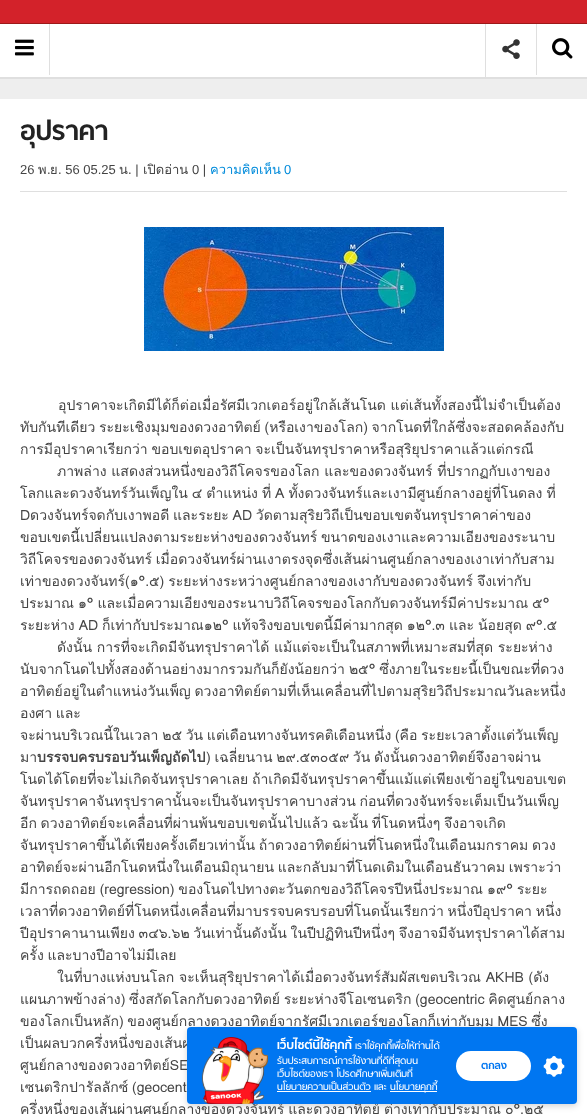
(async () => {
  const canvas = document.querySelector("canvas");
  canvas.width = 587;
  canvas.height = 1114;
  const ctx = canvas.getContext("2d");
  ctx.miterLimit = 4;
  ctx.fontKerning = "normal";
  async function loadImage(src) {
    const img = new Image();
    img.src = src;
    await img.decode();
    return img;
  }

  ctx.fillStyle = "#ffffff";
  ctx.fillRect(0, 0, 587, 1114);
  for (const [x, y, w, h, color] of [
    [0, 0, 587, 23, "#d3222a"],
    [0, 23, 587, 1, "#9d1919"],
    [0, 79, 587, 20, "#eeeeee"],
    [0, 77, 587, 2, "#dfdfdf"],
    [49, 24, 1, 51, "#dfdfdf"],
  ]) {
    ctx.fillStyle = color;
    ctx.fillRect(x, y, w, h);
  }
  ctx.drawImage(await loadImage("img/1.png"), 14, 39, 20, 17);
  ctx.fillRect(485, 24, 1, 53);
  ctx.drawImage(await loadImage("img/2.png"), 502, 39, 18, 20);
  ctx.fillRect(536, 24, 1, 51);
  ctx.drawImage(await loadImage("img/3.png"), 552, 38, 21, 21);
  ctx.fillRect(20, 191, 547, 1);
  ctx.drawImage(await loadImage("img/4.png"), 144, 227, 300, 124);
  ctx.fillStyle = "rgba(0, 0, 0, 0.17)";
  ctx.filter = "blur(3px)";
  ctx.beginPath();
  ctx.roundRect(187, 1029, 390, 77, 4);
  ctx.fill();
  ctx.filter = "none";
  ctx.font = "bold 30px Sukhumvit";
  ctx.fillStyle = "#222222";
  ctx.fillText("อุปราคา", 20, 140);
  ctx.font = "13px Liberation Sans";
  ctx.fillStyle = "#444444";
  ctx.fillText("26", 20, 174);
  ctx.font = "13px Loma";
  ctx.fillText("พ", 38, 174);
  ctx.font = "13px Liberation Sans";
  ctx.fillText(".", 47, 174);
  ctx.font = "13px Loma";
  ctx.fillText("ย", 50, 174);
  ctx.font = "13px Liberation Sans";
  ctx.fillText(". 56 05.25", 58, 174);
  ctx.font = "13px Loma";
  ctx.fillText("น", 119, 174);
  ctx.font = "13px Liberation Sans";
  ctx.fillText(". |", 128, 174);
  ctx.font = "13px Loma";
  ctx.fillText("เปิดอ่าน", 143, 174);
  ctx.font = "13px Liberation Sans";
  ctx.fillText("0 |", 192, 174);
  ctx.font = "13px Loma";
  ctx.fillStyle = "#008bdb";
  ctx.fillText("ความคิดเห็น", 210, 174);
  ctx.font = "13px Liberation Sans";
  ctx.fillText("0", 284, 174);
  ctx.font = "14px Loma";
  ctx.fillStyle = "#444444";
  ctx.fillText("อุปราคาจะเกิดมีได้ก็ต่อเมื่อรัศมีเวกเตอร์อยู่ใกล้เส้นโนด แต่เส้นทั้งสองนี้ไม่จำเป็นต้อง", 58, 410);
  ctx.wordSpacing = "-1px";
  ctx.fillText("ทับกันทีเดียว ระยะเชิงมุมของดวงอาทิตย์ (หรือเงาของโลก) จากโนดที่ใกล้ซึ่งจะสอดคล้องกับ", 20, 432);
  ctx.fillText("การมีอุปราคาเรียกว่า ขอบเขตอุปราคา จะเป็นจันทรุปราคาหรือสุริยุปราคาแล้วแต่กรณี", 20, 454);
  ctx.wordSpacing = "0px";
  ctx.fillText("ภาพล่าง แสดงส่วนหนึ่งของวิถีโคจรของโลก และของดวงจันทร์ ที่ปรากฏกับเงาของ", 57, 476);
  ctx.wordSpacing = "-0.75px";
  ctx.fillText("โลกและดวงจันทร์วันเพ็ญใน ๔ ตำแหน่ง ที่ A ทั้งดวงจันทร์และเงามีศูนย์กลางอยู่ที่โนดลง ที่", 20, 498);
  ctx.wordSpacing = "-1px";
  for (const [text, x, y] of [
    ["Dดวงจันทร์จดกับเงาพอดี และระยะ AD วัดตามสุริยวิถีเป็นขอบเขตจันทรุปราคาค่าของ", 20, 520],
    ["ขอบเขตนี้เปลี่ยนแปลงตามระยะห่างของดวงจันทร์ ขนาดของเงาและความเอียงของระนาบ", 20, 542],
    ["วิถีโคจรของดวงจันทร์ เมื่อดวงจันทร์ผ่านเงาตรงจุดซึ่งเส้นผ่านศูนย์กลางของเงาเท่ากับสาม", 20, 564],
  ]) {
    ctx.fillText(text, x, y);
  }
  ctx.wordSpacing = "-0.75px";
  for (const [text, x, y] of [
    ["เท่าของดวงจันทร์(๑°.๕) ระยะห่างระหว่างศูนย์กลางของเงากับของดวงจันทร์ จึงเท่ากับ", 20, 586],
    ["ประมาณ ๑° และเมื่อความเอียงของระนาบวิถีโคจรของโลกกับดวงจันทร์มีค่าประมาณ ๕°", 20, 608],
    ["ระยะห่าง AD ก็เท่ากับประมาณ๑๒° แท้จริงขอบเขตนี้มีค่ามากสุด ๑๒°.๓ และ น้อยสุด ๙°.๕", 20, 630],
  ]) {
    ctx.fillText(text, x, y);
  }
  ctx.wordSpacing = "0px";
  ctx.fillText("ดังนั้น การที่จะเกิดมีจันทรุปราคาได้ แม้แต่จะเป็นในสภาพที่เหมาะสมที่สุด ระยะห่าง", 57, 652);
  ctx.wordSpacing = "-0.75px";
  ctx.fillText("นับจากโนดไปทั้งสองด้านอย่างมากรวมกันก็ยังน้อยกว่า ๒๕° ซึ่งภายในระยะนี้เป็นขณะที่ดวง", 20, 674);
  ctx.wordSpacing = "-1px";
  for (const [text, x, y] of [
    ["อาทิตย์อยู่ในตำแหน่งวันเพ็ญ ดวงอาทิตย์ตามที่เห็นเคลื่อนที่ไปตามสุริยวิถีประมาณวันละหนึ่ง", 20, 696],
    ["องศา และ", 20, 718],
    ["จะผ่านบริเวณนี้ในเวลา ๒๕ วัน แต่เดือนทางจันทรคติเดือนหนึ่ง (คือ ระยะเวลาตั้งแต่วันเพ็ญ", 20, 740],
  ]) {
    ctx.fillText(text, x, y);
  }
  ctx.wordSpacing = "0px";
  ctx.fillText("มา", 20, 762);
  ctx.font = "bold 14px Loma";
  ctx.fillText("บรรจบครบรอบวันเพ็ญถัดไป", 37, 762);
  ctx.wordSpacing = "-1px";
  ctx.font = "14px Loma";
  for (const [text, x, y] of [
    [") เฉลี่ยนาน ๒๙.๕๓๐๕๙ วัน ดังนั้นดวงอาทิตย์จึงอาจผ่าน", 206, 762],
    ["โนดได้โดยที่จะไม่เกิดจันทรุปราคาเลย ถ้าเกิดมีจันทรุปราคาขึ้นแม้แต่เพียงเข้าอยู่ในขอบเขต", 20, 784],
    ["จันทรุปราคาจันทรุปราคานั้นจะเป็นจันทรุปราคาบางส่วน ก่อนที่ดวงจันทร์จะเต็มเป็นวันเพ็ญ", 20, 806],
    ["อีก ดวงอาทิตย์จะเคลื่อนที่ผ่านพ้นขอบเขตนั้นไปแล้ว ฉะนั้น ที่โนดหนึ่งๆ จึงอาจเกิด", 20, 828],
    ["จันทรุปราคาขึ้นได้เพียงครั้งเดียวเท่านั้น ถ้าดวงอาทิตย์ผ่านที่โนดหนึ่งในเดือนมกราคม ดวง", 20, 850],
    ["อาทิตย์จะผ่านอีกโนดหนึ่งในเดือนมิถุนายน และกลับมาที่โนดเดิมในเดือนธันวาคม เพราะว่า", 20, 872],
  ]) {
    ctx.fillText(text, x, y);
  }
  ctx.wordSpacing = "-0.75px";
  ctx.fillText("มีการถดถอย (regression) ของโนดไปทางตะวันตกของวิถีโคจรปีหนึ่งประมาณ ๑๙° ระยะ", 20, 894);
  ctx.wordSpacing = "-1px";
  for (const [text, x, y] of [
    ["เวลาที่ดวงอาทิตย์ที่โนดหนึ่งเคลื่อนที่มาบรรจบครบรอบที่โนดนั้นเรียกว่า หนึ่งปีอุปราคา หนึ่ง", 20, 916],
    ["ปีอุปราคานานเพียง ๓๔๖.๖๒ วันเท่านั้นดังนั้น ในปีปฏิทินปีหนึ่งๆ จึงอาจมีจันทรุปราคาได้สาม", 20, 938],
    ["ครั้ง และบางปีอาจไม่มีเลย", 20, 960],
  ]) {
    ctx.fillText(text, x, y);
  }
  ctx.wordSpacing = "0px";
  ctx.fillText("ในที่บางแห่งบนโลก จะเห็นสุริยุปราคาได้เมื่อดวงจันทร์สัมผัสเขตบริเวณ AKHB (ดัง", 57, 982);
  ctx.wordSpacing = "-1px";
  ctx.fillText("แผนภาพข้างล่าง) ซึ่งสกัดโลกกับดวงอาทิตย์ ระยะห่างจีโอเซนตริก (geocentric คิดศูนย์กลาง", 20, 1004);
  ctx.fillText("ของโลกเป็นหลัก) ของศูนย์กลางดวงอาทิตย์จากรัศมีเวกเตอร์ของโลกก็เท่ากับมุม MES ซึ่ง", 20, 1026);
  ctx.wordSpacing = "0px";
  ctx.fillText("เป็นผลบวกครึ่งหนึ่งของเส้นผ่", 20, 1048);
  ctx.wordSpacing = "-1px";
  ctx.fillText("ศูนย์กลางของดวงอาทิตย์SE", 20, 1070);
  ctx.fillText("เซนตริกปารัลลักซ์ (geocent", 20, 1092);
  ctx.wordSpacing = "-0.75px";
  ctx.fillText("ครึ่งหนึ่งของเส้นผ่านศูนย์กลางของดวงจันทร์ และดวงอาทิตย์ ต่างเท่ากับประมาณ ๐°.๒๕", 20, 1114);
  ctx.fillStyle = "#0076f1";
  ctx.beginPath();
  ctx.roundRect(187, 1027, 390, 77, 4);
  ctx.fill();
  ctx.drawImage(await loadImage("img/5.png"), 201, 1037, 67, 67);
  ctx.wordSpacing = "0px";
  ctx.font = "bold 13.75px 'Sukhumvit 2'";
  ctx.fillStyle = "#ffffff";
  ctx.fillText("เว็บไซต์นี้ใช้คุกกี้", 277, 1049);
  ctx.font = "11px Sukhumvit";
  for (const [text, x, y] of [
    ["เราใช้คุกกี้เพื่อให้ท่านได้", 355, 1049],
    ["รับประสบการณ์การใช้งานที่ดีที่สุดบน", 277, 1064],
    ["เว็บไซต์ของเรา โปรดศึกษาเพิ่มเติมที่", 277, 1077],
    ["นโยบายความเป็นส่วนตัว และ", 277, 1090],
  ]) {
    ctx.fillText(text, x, y);
  }
  ctx.fillRect(277, 1091, 94, 1);
  ctx.fillRect(390, 1091, 47, 1);
  ctx.fillText("นโยบายคุกกี้", 390, 1090);
  ctx.beginPath();
  ctx.roundRect(456, 1051, 75, 30, 15);
  ctx.fill();
  ctx.font = "bold 12px 'Sukhumvit 2'";
  ctx.fillStyle = "#0076f1";
  ctx.fillText("ตกลง", 481, 1069);
  ctx.drawImage(await loadImage("img/6.png"), 543, 1056, 22, 21);
})();
